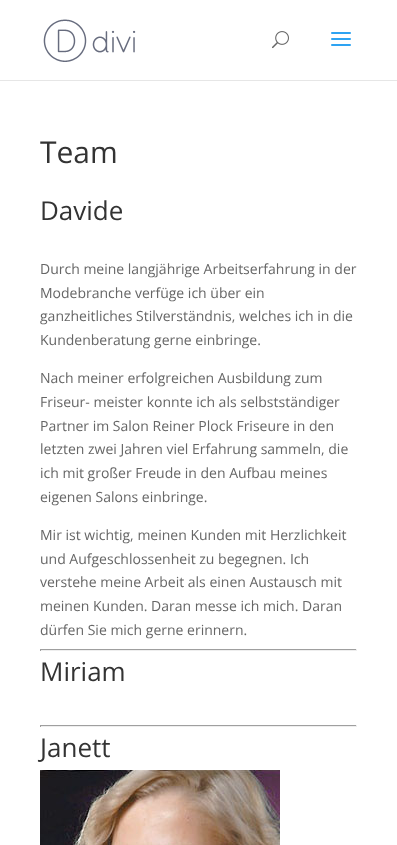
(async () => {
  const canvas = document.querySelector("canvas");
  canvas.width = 397;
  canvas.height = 845;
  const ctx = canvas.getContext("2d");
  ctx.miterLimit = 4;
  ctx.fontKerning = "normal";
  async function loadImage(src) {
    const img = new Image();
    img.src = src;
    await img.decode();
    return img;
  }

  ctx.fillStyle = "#ffffff";
  ctx.fillRect(0, 0, 397, 845);
  ctx.fillStyle = "#e6e6e6";
  ctx.fillRect(0, 80, 397, 1);
  ctx.drawImage(await loadImage("img/1.png"), 43, 19, 93, 43);
  ctx.drawImage(await loadImage("img/2.png"), 272, 31, 17, 18);
  ctx.drawImage(await loadImage("img/3.png"), 331, 32, 20, 14);
  for (const [x, y, w, h, color] of [
    [40, 649, 317, 1, "#9f9f9f"],
    [356, 649, 1, 2, "#eeeeee"],
    [40, 650, 317, 1, "#eeeeee"],
    [40, 649, 1, 2, "#9f9f9f"],
    [40, 725, 317, 1, "#9f9f9f"],
    [356, 725, 1, 2, "#eeeeee"],
    [40, 726, 317, 1, "#eeeeee"],
    [40, 725, 1, 2, "#9f9f9f"],
  ]) {
    ctx.fillStyle = color;
    ctx.fillRect(x, y, w, h);
  }
  ctx.drawImage(await loadImage("img/4.png"), 40, 770, 240, 75);
  ctx.font = "30px Open Sans";
  ctx.fillStyle = "#333333";
  ctx.fillText("Team", 40, 163);
  ctx.font = "26px Open Sans";
  ctx.fillText("Davide", 40, 220);
  ctx.font = "14px Open Sans";
  ctx.fillStyle = "#666666";
  for (const [text, x, y] of [
    ["Durch meine langjährige Arbeitserfahrung in der", 40, 274],
    ["Modebranche verfüge ich über ein", 40, 298],
    ["ganzheitliches Stilverständnis, welches ich in die", 40, 321],
    ["Kundenberatung gerne einbringe.", 40, 345],
    ["Nach meiner erfolgreichen Ausbildung zum", 40, 383],
    ["Friseur- meister konnte ich als selbstständiger", 40, 407],
    ["Partner im Salon Reiner Plock Friseure in den", 40, 431],
    ["letzten zwei Jahren viel Erfahrung sammeln, die", 40, 454],
    ["ich mit großer Freude in den Aufbau meines", 40, 478],
    ["eigenen Salons einbringe.", 40, 502],
    ["Mir ist wichtig, meinen Kunden mit Herzlichkeit", 40, 540],
    ["und Aufgeschlossenheit zu begegnen. Ich", 40, 564],
    ["verstehe meine Arbeit als einen Austausch mit", 40, 587],
    ["meinen Kunden. Daran messe ich mich. Daran", 40, 611],
    ["dürfen Sie mich gerne erinnern.", 40, 635],
  ]) {
    ctx.fillText(text, x, y);
  }
  ctx.font = "26px Open Sans";
  ctx.fillStyle = "#333333";
  ctx.fillText("Miriam", 40, 681);
  ctx.fillText("Janett", 40, 757);
})();
